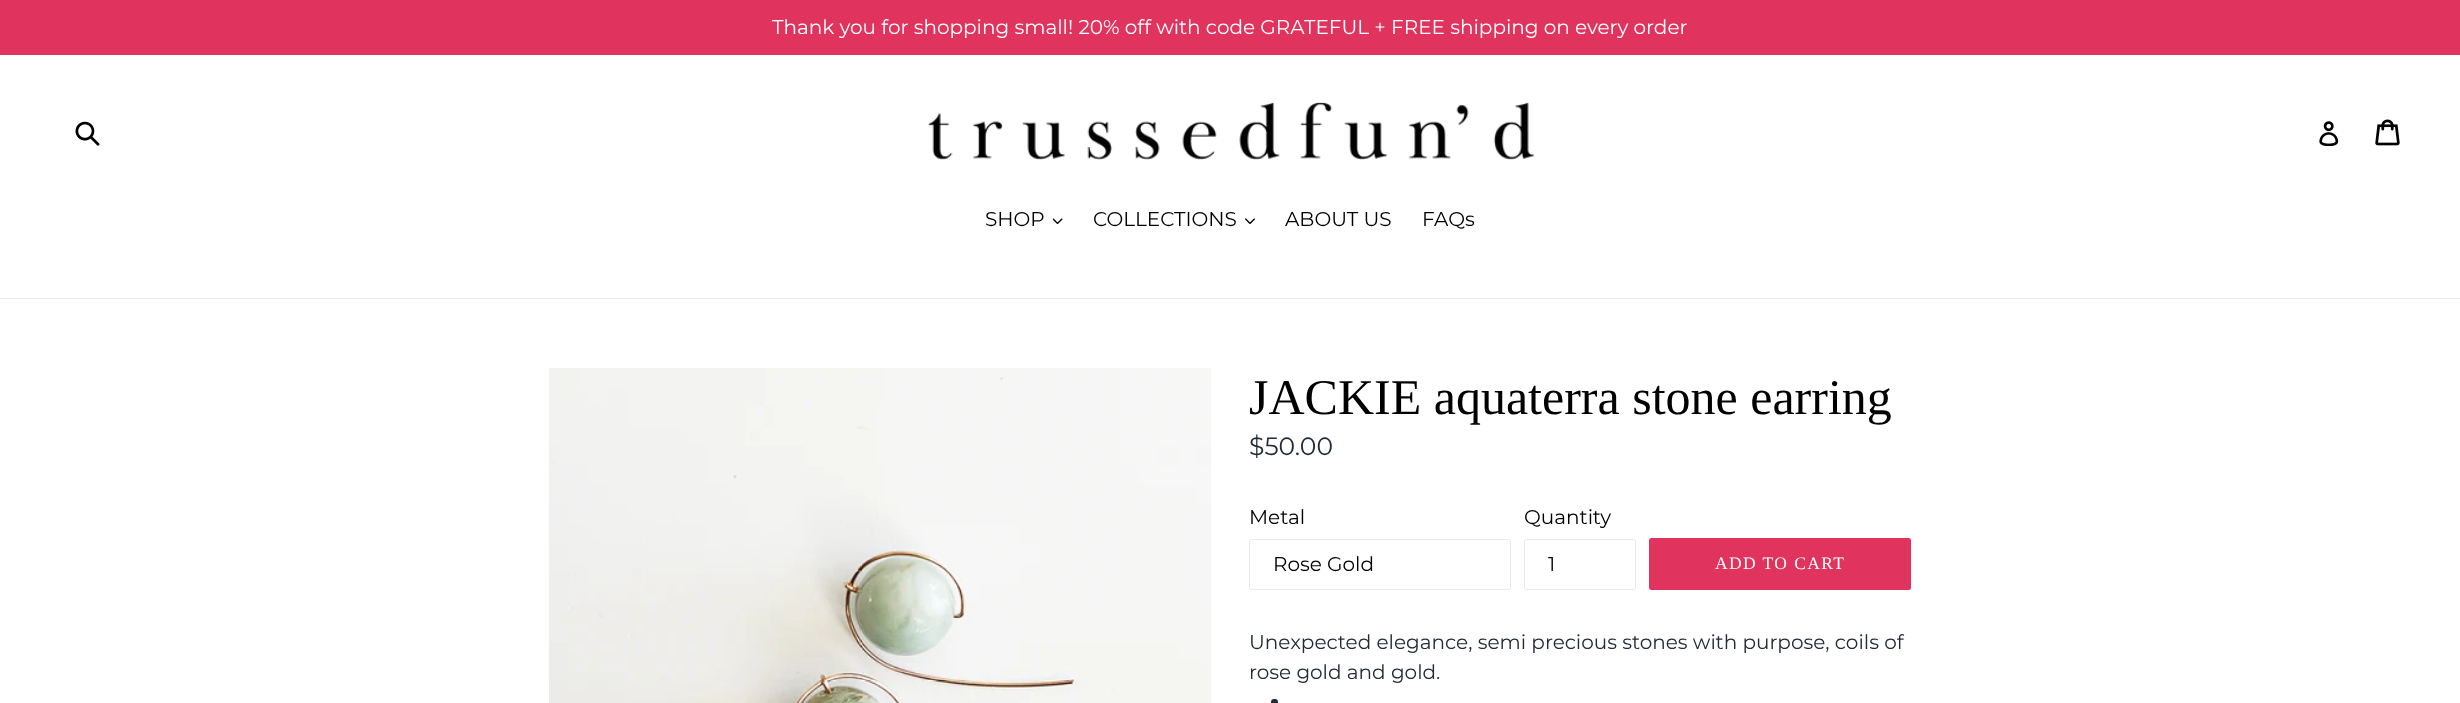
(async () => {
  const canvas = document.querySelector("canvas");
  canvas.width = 2460;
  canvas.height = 703;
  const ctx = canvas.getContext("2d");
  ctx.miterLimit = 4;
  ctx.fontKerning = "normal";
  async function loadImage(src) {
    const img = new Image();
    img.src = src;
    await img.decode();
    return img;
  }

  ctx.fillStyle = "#ffffff";
  ctx.fillRect(0, 0, 2460, 703);
  ctx.fillStyle = "#e0335d";
  ctx.fillRect(0, 0, 2460, 55);
  ctx.drawImage(await loadImage("img/1.png"), 75, 121, 25, 25);
  ctx.drawImage(await loadImage("img/2.png"), 928, 102, 607, 58);
  ctx.drawImage(await loadImage("img/3.png"), 2319, 121, 20, 25);
  ctx.drawImage(await loadImage("img/4.png"), 2375, 119, 25, 27);
  ctx.fillStyle = "#e8e9eb";
  ctx.fillRect(0, 298, 2460, 1);
  ctx.drawImage(await loadImage("img/5.png"), 1053, 218, 10, 7);
  ctx.drawImage(await loadImage("img/6.png"), 1245, 218, 10, 6);
  ctx.drawImage(await loadImage("img/7.png"), 549, 368, 662, 335);
  ctx.beginPath();
  ctx.roundRect(1249.5, 539.5, 261, 50, 2);
  ctx.strokeStyle = "#e8e9eb";
  ctx.stroke();
  ctx.beginPath();
  ctx.roundRect(1524.5, 539.5, 111, 50, 2);
  ctx.stroke();
  ctx.fillStyle = "#e0335d";
  ctx.beginPath();
  ctx.roundRect(1649, 538, 262, 52, 2.5);
  ctx.fill();
  ctx.fillStyle = "#222b37";
  ctx.beginPath();
  ctx.roundRect(1271, 699, 7, 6, 3);
  ctx.fill();
  ctx.font = "20px Montserrat";
  ctx.fillStyle = "#ffffff";
  ctx.fillText("Thank you for shopping small! 20% off with code GRATEFUL + FREE shipping on every order", 772, 34);
  ctx.fillStyle = "#000000";
  for (const [text, x, y] of [
    ["SHOP", 985, 226],
    ["COLLECTIONS", 1093, 226],
    ["ABOUT US", 1285, 226],
    ["FAQs", 1422, 226],
  ]) {
    ctx.fillText(text, x, y);
  }
  ctx.font = "50px Liberation Serif";
  ctx.fillText("JACKIE aquaterra stone earring", 1249, 414);
  ctx.font = "25px Montserrat";
  ctx.fillStyle = "#222b37";
  ctx.fillText("$50.00", 1249, 455);
  ctx.font = "20px Montserrat";
  ctx.fillStyle = "#000000";
  for (const [text, x, y] of [
    ["Metal", 1249, 524],
    ["Rose Gold", 1273, 571],
    ["Quantity", 1524, 524],
    ["1", 1548, 571],
  ]) {
    ctx.fillText(text, x, y);
  }
  ctx.letterSpacing = "1.4px";
  ctx.font = "17.5px Liberation Serif";
  ctx.fillStyle = "#ffffff";
  ctx.fillText("ADD TO CART", 1715, 569);
  ctx.letterSpacing = "0px";
  ctx.font = "20px Montserrat";
  ctx.fillStyle = "#222b37";
  ctx.fillText("Unexpected elegance, semi precious stones with purpose, coils of", 1249, 649);
  ctx.fillText("rose gold and gold.", 1249, 679);
})();
